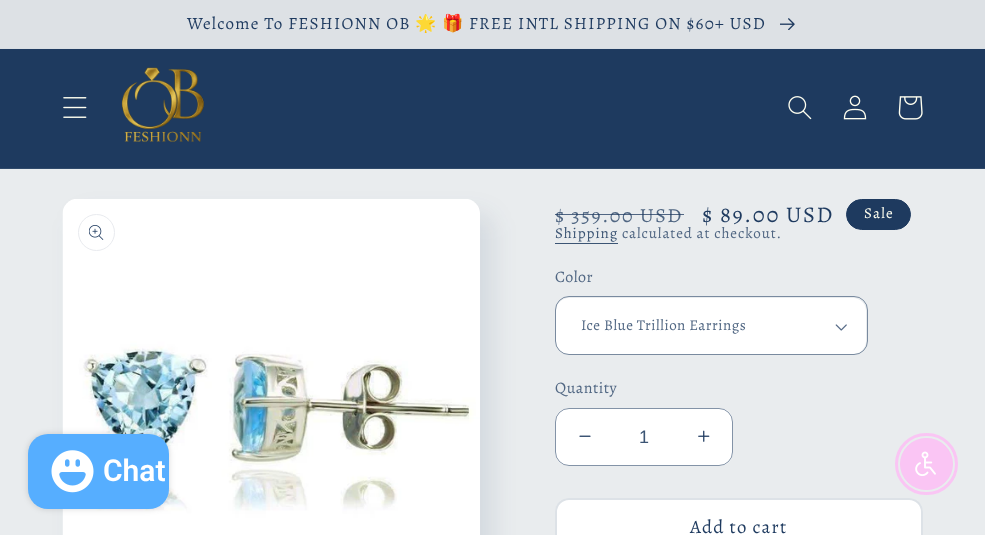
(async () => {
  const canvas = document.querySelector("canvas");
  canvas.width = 985;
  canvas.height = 535;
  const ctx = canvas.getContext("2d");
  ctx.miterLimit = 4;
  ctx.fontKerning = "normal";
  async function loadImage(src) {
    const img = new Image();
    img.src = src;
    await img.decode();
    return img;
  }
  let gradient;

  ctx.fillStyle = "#e9ecee";
  ctx.fillRect(0, 0, 985, 535);
  ctx.fillStyle = "#d9dee3";
  ctx.fillRect(0, 48, 985, 1);
  ctx.fillStyle = "#dde1e5";
  ctx.fillRect(0, 0, 985, 48);
  ctx.drawImage(await loadImage("img/1.png"), 780, 18, 15, 12);
  gradient = ctx.createRadialGradient(493, 494.17, 0, 493, 494.17, 697);
  gradient.addColorStop(1, "#1e3a5f");
  gradient.addColorStop(1, "#e8f8fe");
  ctx.fillStyle = gradient;
  ctx.beginPath();
  ctx.rect(0, 49, 985, 119);
  ctx.save();
  ctx.clip();
  ctx.scale(1, 378 / 697);
  ctx.fillRect(0, 0, 985, 987);
  ctx.restore();
  ctx.fillStyle = "#304a6b";
  ctx.fillRect(0, 168, 985, 1);
  ctx.drawImage(await loadImage("img/2.png"), 63, 97, 24, 21);
  ctx.drawImage(await loadImage("img/3.png"), 121, 67, 84, 76);
  ctx.drawImage(await loadImage("img/4.png"), 788, 96, 24, 24);
  ctx.drawImage(await loadImage("img/5.png"), 843, 95, 24, 25);
  ctx.drawImage(await loadImage("img/6.png"), 898, 96, 25, 24);
  ctx.fillStyle = "rgba(30, 58, 95, 0.1)";
  ctx.filter = "blur(12.5px)";
  ctx.beginPath();
  ctx.roundRect(75, 214, 418, 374, 15);
  ctx.fill();
  ctx.filter = "none";
  ctx.drawImage(await loadImage("img/8.png"), 62, 199, 418, 336);
  ctx.fillStyle = "rgba(0, 0, 0, 0.15)";
  ctx.filter = "blur(3px)";
  ctx.beginPath();
  ctx.roundRect(28, 434, 141, 75, 20);
  ctx.fill();
  ctx.filter = "none";
  ctx.fillStyle = "#56aeff";
  ctx.beginPath();
  ctx.roundRect(28, 434, 141, 75, 20);
  ctx.fill();
  ctx.drawImage(await loadImage("img/7.png"), 51, 450, 43, 43);
  ctx.beginPath();
  ctx.arc(96.5, 232.5, 18, 0, Math.PI * 2);
  ctx.strokeStyle = "#e9ebef";
  ctx.stroke();
  ctx.drawImage(await loadImage("img/9.png"), 89, 225, 15, 15);
  ctx.fillStyle = "#1e3a5f";
  ctx.beginPath();
  ctx.roundRect(846.5, 199.5, 64, 30, 15);
  ctx.fill();
  ctx.strokeStyle = "#1e3a5f";
  ctx.stroke();
  ctx.fillStyle = "#3c5574";
  ctx.fillRect(555, 243, 63, 1);
  ctx.fillStyle = "#ffffff";
  ctx.beginPath();
  ctx.roundRect(556, 298, 310, 56, 13);
  ctx.fill();
  ctx.drawImage(await loadImage("img/10.png"), 835, 324, 12, 7);
  ctx.beginPath();
  ctx.roundRect(555.5, 296.5, 312, 58, 13.5);
  ctx.strokeStyle = "rgba(30, 58, 95, 0.55)";
  ctx.stroke();
  ctx.beginPath();
  ctx.roundRect(555, 408, 178, 58, 14);
  ctx.fill();
  ctx.drawImage(await loadImage("img/11.png"), 579, 435, 12, 2);
  ctx.drawImage(await loadImage("img/12.png"), 698, 430, 12, 12);
  ctx.beginPath();
  ctx.roundRect(555.5, 408.5, 177, 57, 13.5);
  ctx.stroke();
  ctx.beginPath();
  ctx.roundRect(555, 498, 368, 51, 14);
  ctx.fill();
  ctx.beginPath();
  ctx.roundRect(555.5, 498.5, 367, 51, 13.5);
  ctx.strokeStyle = "#ffffff";
  ctx.stroke();
  ctx.beginPath();
  ctx.roundRect(556, 499, 366, 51, 13);
  ctx.strokeStyle = "rgba(30, 58, 95, 0.15)";
  ctx.lineWidth = 2;
  ctx.stroke();
  ctx.beginPath();
  ctx.roundRect(896.5, 434.5, 60, 59, 29.5);
  ctx.strokeStyle = "#fac5f4";
  ctx.lineWidth = 3;
  ctx.stroke();
  ctx.fillStyle = "#fac5f4";
  ctx.beginPath();
  ctx.roundRect(900.5, 438.5, 52, 51, 25.5);
  ctx.fill();
  ctx.lineWidth = 1;
  ctx.stroke();
  ctx.drawImage(await loadImage("img/13.png"), 915, 451, 21, 25);
  ctx.letterSpacing = "1.25px";
  ctx.font = "17.1px Alegreya";
  ctx.fillStyle = "#1e3a5f";
  ctx.fillText("Welcome To FESHIONN OB", 187, 29);
  ctx.font = "17.1px Noto Color Emoji";
  ctx.fillText("🌟", 415, 29);
  ctx.fillText("🎁", 442, 29);
  ctx.font = "17.1px Alegreya";
  ctx.fillText("FREE INTL SHIPPING ON $60+ USD", 469, 29);
  ctx.letterSpacing = "0px";
  ctx.font = "600 30px Roboto";
  ctx.fillStyle = "#ffffff";
  ctx.fillText("Chat", 103, 481);
  ctx.letterSpacing = "1.6px";
  ctx.font = "20px Alegreya";
  ctx.fillStyle = "#516783";
  ctx.fillText("$ 359.00 USD", 555, 222);
  ctx.fillStyle = "rgba(30, 58, 95, 0.75)";
  ctx.fillRect(555, 214, 129, 1);
  ctx.font = "22.5px Alegreya";
  ctx.fillStyle = "#1e3a5f";
  ctx.fillText("$ 89.00 USD", 702, 222);
  ctx.letterSpacing = "1.25px";
  ctx.font = "15px Alegreya";
  ctx.fillStyle = "#fffff0";
  ctx.fillText("Sale", 864, 218);
  ctx.letterSpacing = "0.9px";
  ctx.fillStyle = "#3c5574";
  ctx.fillText("Shipping", 555, 238);
  ctx.fillStyle = "#516783";
  ctx.fillText("calculated at checkout.", 622, 238);
  ctx.letterSpacing = "0.5px";
  ctx.font = "16px Alegreya";
  ctx.fillText("Color", 555, 282);
  ctx.font = "15px Alegreya";
  ctx.fillText("Ice Blue Trillion Earrings", 581, 330);
  ctx.font = "16px Alegreya";
  ctx.fillText("Quantity", 555, 393);
  ctx.letterSpacing = "0px";
  ctx.font = "18px Liberation Sans";
  ctx.fillStyle = "#3c5574";
  ctx.fillText("1", 639, 443);
  ctx.letterSpacing = "1.25px";
  ctx.font = "18.75px Alegreya";
  ctx.fillStyle = "#1e3a5f";
  ctx.fillText("Add to cart", 690, 533);
})();
